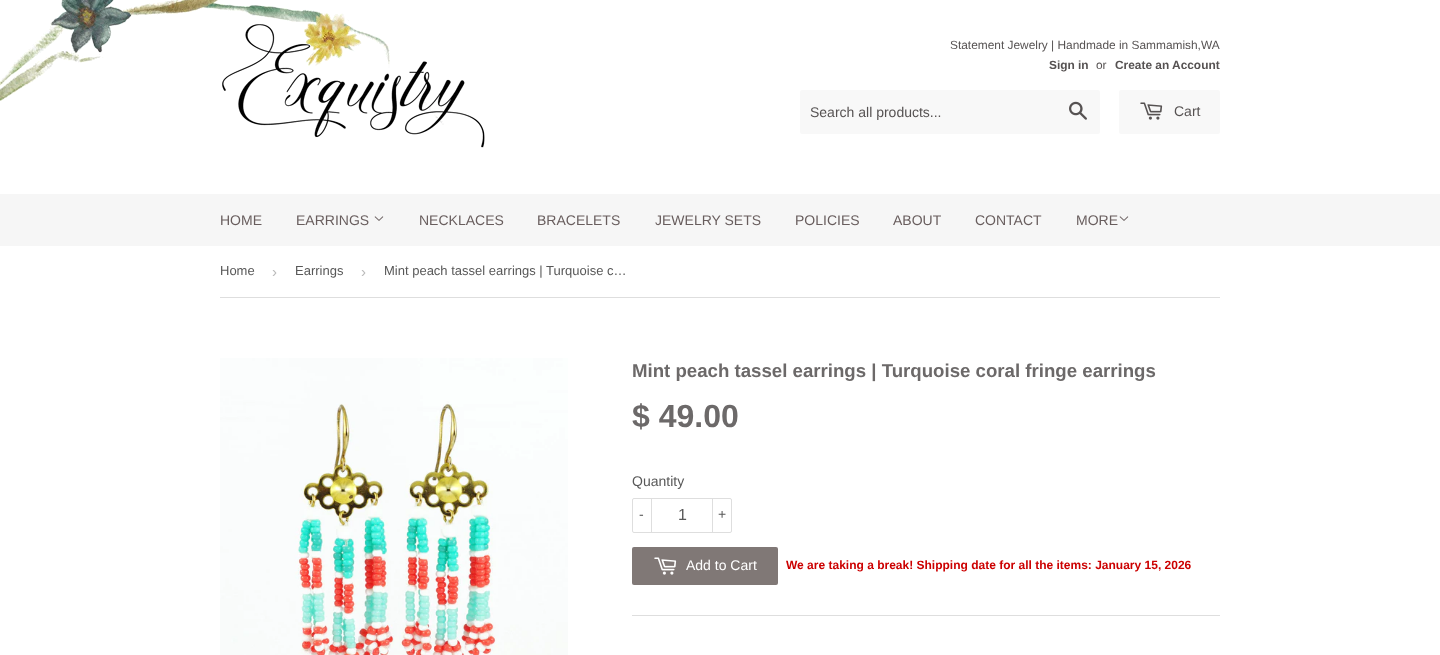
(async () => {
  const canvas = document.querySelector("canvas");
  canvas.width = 1440;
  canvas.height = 655;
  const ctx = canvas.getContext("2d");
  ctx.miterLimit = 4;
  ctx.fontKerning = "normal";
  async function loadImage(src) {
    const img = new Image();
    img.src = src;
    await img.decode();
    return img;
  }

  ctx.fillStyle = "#ffffff";
  ctx.fillRect(0, 0, 1440, 655);
  ctx.drawImage(await loadImage("img/1.png"), 0, 0, 444, 125);
  ctx.drawImage(await loadImage("img/2.png"), 222, 24, 263, 124);
  ctx.fillStyle = "#f8f8f8";
  ctx.beginPath();
  ctx.roundRect(800, 90, 300, 44, 2);
  ctx.fill();
  ctx.drawImage(await loadImage("img/3.png"), 1069, 101, 18, 19);
  ctx.beginPath();
  ctx.roundRect(1119, 90, 101, 44, 2);
  ctx.fill();
  ctx.drawImage(await loadImage("img/4.png"), 1140, 102, 23, 18);
  ctx.fillStyle = "#f6f6f6";
  ctx.fillRect(0, 194, 1440, 52);
  ctx.drawImage(await loadImage("img/5.png"), 374, 216, 10, 5);
  ctx.drawImage(await loadImage("img/5.png"), 1119, 216, 10, 5);
  ctx.fillStyle = "#dedede";
  ctx.fillRect(220, 297, 1000, 1);
  ctx.drawImage(await loadImage("img/6.png"), 220, 358, 348, 297);
  ctx.beginPath();
  ctx.roundRect(632.5, 498.5, 99, 34, 1.5);
  ctx.strokeStyle = "#dedede";
  ctx.stroke();
  ctx.fillRect(651, 498, 1, 35);
  ctx.fillRect(712, 498, 1, 35);
  ctx.fillStyle = "#807876";
  ctx.beginPath();
  ctx.roundRect(632, 547, 146, 38, 2);
  ctx.fill();
  ctx.drawImage(await loadImage("img/7.png"), 654, 557, 23, 18);
  ctx.fillStyle = "#dedede";
  ctx.fillRect(632, 615, 588, 1);
  ctx.font = "11.9px Liberation Sans";
  ctx.fillStyle = "#565252";
  ctx.fillText("Statement Jewelry | Handmade in Sammamish,WA", 950, 49);
  ctx.font = "bold 11.9px Liberation Sans";
  ctx.fillText("Sign in", 1049, 69);
  ctx.font = "11.9px Liberation Sans";
  ctx.fillText("or", 1096, 69);
  ctx.font = "bold 11.9px Liberation Sans";
  ctx.fillText("Create an Account", 1115, 69);
  ctx.font = "14px Liberation Sans";
  ctx.fillText("Search all products...", 810, 117);
  ctx.fillText("Cart", 1174, 116);
  ctx.fillStyle = "#685d5d";
  for (const [text, x, y] of [
    ["HOME", 220, 225],
    ["EARRINGS", 296, 225],
    ["NECKLACES", 419, 225],
    ["BRACELETS", 537, 225],
    ["JEWELRY SETS", 655, 225],
    ["POLICIES", 795, 225],
    ["ABOUT", 893, 225],
    ["CONTACT", 975, 225],
    ["MORE", 1076, 225],
  ]) {
    ctx.fillText(text, x, y);
  }
  ctx.font = "13px Liberation Sans";
  ctx.fillStyle = "#585858";
  ctx.fillText("Home", 220, 275);
  ctx.font = "15px Liberation Sans";
  ctx.fillStyle = "#bbbbbb";
  ctx.fillText("›", 272, 277);
  ctx.font = "13px Liberation Sans";
  ctx.fillStyle = "#585858";
  ctx.fillText("Earrings", 295, 275);
  ctx.font = "15px Liberation Sans";
  ctx.fillStyle = "#bbbbbb";
  ctx.fillText("›", 361, 277);
  ctx.font = "13px Liberation Sans";
  ctx.fillStyle = "#585858";
  ctx.fillText("Mint peach tassel earrings | Turquoise c…", 384, 275);
  ctx.font = "bold 18.65px Liberation Sans";
  ctx.fillStyle = "#6c6969";
  ctx.fillText("Mint peach tassel earrings | Turquoise coral fringe earrings", 632, 377);
  ctx.font = "bold 32px Liberation Sans";
  ctx.fillText("$ 49.00", 632, 427);
  ctx.font = "14px Liberation Sans";
  ctx.fillStyle = "#585858";
  ctx.fillText("Quantity", 632, 486);
  ctx.fillText("-", 639, 519);
  ctx.font = "16px Liberation Sans";
  ctx.fillText("1", 678, 520);
  ctx.font = "14px Liberation Sans";
  ctx.fillText("+", 718, 519);
  ctx.fillStyle = "#ffffff";
  ctx.fillText("Add to Cart", 686, 570);
  ctx.font = "bold 12px Liberation Sans";
  ctx.fillStyle = "#cc0000";
  ctx.fillText("We are taking a break! Shipping date for all the items: January 15, 2026", 786, 569);
})();
